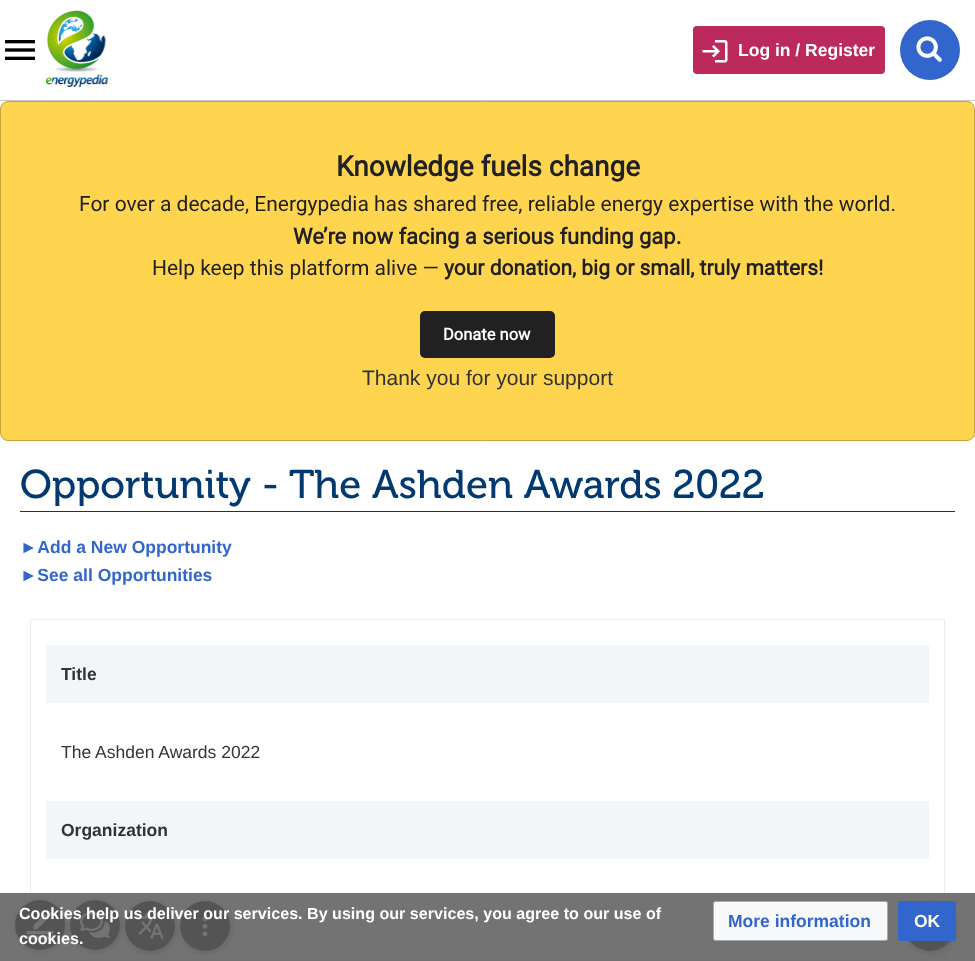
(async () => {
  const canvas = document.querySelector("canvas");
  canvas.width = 975;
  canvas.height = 961;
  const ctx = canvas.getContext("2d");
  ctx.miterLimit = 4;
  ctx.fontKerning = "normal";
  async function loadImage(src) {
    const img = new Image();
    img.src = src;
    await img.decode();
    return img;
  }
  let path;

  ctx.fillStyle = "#ffffff";
  ctx.fillRect(0, 0, 975, 961);
  ctx.drawImage(await loadImage("img/1.png"), 45, 10, 64, 77);
  ctx.fillStyle = "#bc2a5d";
  ctx.beginPath();
  ctx.roundRect(693, 26, 192, 48, 4);
  ctx.fill();
  ctx.drawImage(await loadImage("img/2.png"), 702, 40, 26, 23);
  ctx.fillStyle = "#3366cc";
  ctx.beginPath();
  ctx.arc(930, 50, 30, 0, Math.PI * 2);
  ctx.fill();
  ctx.drawImage(await loadImage("img/3.png"), 916, 36, 26, 26);
  ctx.drawImage(await loadImage("img/4.png"), 5, 40, 30, 20);
  ctx.fillStyle = "#c8ccd1";
  ctx.fillRect(0, 100, 975, 1);
  ctx.fillStyle = "#ffd54f";
  ctx.beginPath();
  ctx.roundRect(0.5, 101.5, 974, 339, 7.5);
  ctx.fill();
  ctx.strokeStyle = "#c9a63a";
  ctx.stroke();
  ctx.fillStyle = "#212121";
  ctx.beginPath();
  ctx.roundRect(420, 311, 135, 47, 5);
  ctx.fill();
  ctx.fillStyle = "#013970";
  ctx.fillRect(20, 511, 935, 1);
  ctx.strokeStyle = "#eeeeee";
  ctx.strokeRect(30.5, 619.5, 914, 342);
  for (const [x, y, w, h, color] of [
    [46, 645, 883, 58, "#f3f6f9"],
    [46, 801, 883, 58, "#f3f6f9"],
    [46, 958, 883, 3, "#f3f6f9"],
  ]) {
    ctx.fillStyle = color;
    ctx.fillRect(x, y, w, h);
  }
  ctx.save();
  path = new Path2D("M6 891H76V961H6ZM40 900C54 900 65 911 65 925C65 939 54 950 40 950C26 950 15 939 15 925C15 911 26 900 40 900Z");
  ctx.clip(path, "evenodd");
  ctx.fillStyle = "#999999";
  ctx.filter = "blur(3px)";
  ctx.beginPath();
  ctx.roundRect(16, 901, 50, 50, 25);
  ctx.fill();
  ctx.filter = "none";
  ctx.restore();
  ctx.fillStyle = "rgba(0, 0, 0, 0.8)";
  ctx.beginPath();
  ctx.arc(40, 925, 25, 0, Math.PI * 2);
  ctx.fill();
  ctx.drawImage(await loadImage("img/5.png"), 26, 910, 28, 29);
  ctx.save();
  path = new Path2D("M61 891H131V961H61ZM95 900C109 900 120 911 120 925C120 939 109 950 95 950C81 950 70 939 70 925C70 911 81 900 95 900Z");
  ctx.clip(path, "evenodd");
  ctx.fillStyle = "#999999";
  ctx.filter = "blur(3px)";
  ctx.beginPath();
  ctx.roundRect(71, 901, 50, 50, 25);
  ctx.fill();
  ctx.filter = "none";
  ctx.restore();
  ctx.beginPath();
  ctx.arc(95, 925, 25, 0, Math.PI * 2);
  ctx.fill();
  ctx.drawImage(await loadImage("img/6.png"), 80, 911, 30, 27);
  ctx.save();
  path = new Path2D("M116 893H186V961H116ZM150 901C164 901 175 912 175 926C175 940 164 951 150 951C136 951 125 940 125 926C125 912 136 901 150 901Z");
  ctx.clip(path, "evenodd");
  ctx.fillStyle = "#999999";
  ctx.filter = "blur(3px)";
  ctx.beginPath();
  ctx.roundRect(126, 903, 50, 50, 25);
  ctx.fill();
  ctx.filter = "none";
  ctx.restore();
  ctx.beginPath();
  ctx.arc(150, 926, 25, 0, Math.PI * 2);
  ctx.fill();
  ctx.drawImage(await loadImage("img/7.png"), 136, 913, 28, 26);
  ctx.save();
  path = new Path2D("M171 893H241V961H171ZM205 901C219 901 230 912 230 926C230 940 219 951 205 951C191 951 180 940 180 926C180 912 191 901 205 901Z");
  ctx.clip(path, "evenodd");
  ctx.fillStyle = "#999999";
  ctx.filter = "blur(3px)";
  ctx.beginPath();
  ctx.roundRect(181, 903, 50, 50, 25);
  ctx.fill();
  ctx.filter = "none";
  ctx.restore();
  ctx.beginPath();
  ctx.arc(205, 926, 25, 0, Math.PI * 2);
  ctx.fill();
  ctx.drawImage(await loadImage("img/8.png"), 202, 916, 6, 21);
  ctx.save();
  path = new Path2D("M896 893H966V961H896ZM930 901C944 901 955 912 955 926C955 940 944 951 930 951C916 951 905 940 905 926C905 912 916 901 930 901Z");
  ctx.clip(path, "evenodd");
  ctx.fillStyle = "#999999";
  ctx.filter = "blur(3px)";
  ctx.beginPath();
  ctx.roundRect(906, 903, 50, 50, 25);
  ctx.fill();
  ctx.filter = "none";
  ctx.restore();
  ctx.beginPath();
  ctx.arc(930, 926, 25, 0, Math.PI * 2);
  ctx.fill();
  ctx.fillStyle = "rgba(90, 90, 90, 0.85)";
  ctx.fillRect(0, 893, 975, 68);
  ctx.fillStyle = "#f8f9fa";
  ctx.beginPath();
  ctx.roundRect(713.5, 901.5, 174, 39, 2);
  ctx.fill();
  ctx.strokeStyle = "#a2a9b1";
  ctx.stroke();
  ctx.fillStyle = "#3366cc";
  ctx.beginPath();
  ctx.roundRect(898.5, 901.5, 57, 39, 2);
  ctx.fill();
  ctx.strokeStyle = "#3366cc";
  ctx.stroke();
  ctx.font = "bold 17.5px Liberation Sans";
  ctx.fillStyle = "#ffffff";
  ctx.fillText("Log in / Register", 738, 56);
  ctx.font = "bold 28px Roboto";
  ctx.fillStyle = "#212121";
  ctx.fillText("Knowledge fuels change", 336, 176);
  ctx.font = "21px Roboto";
  ctx.fillText("For over a decade, Energypedia has shared free, reliable energy expertise with the world.", 79, 211);
  ctx.font = "bold 22px Roboto";
  ctx.fillText("We’re now facing a serious funding gap.", 293, 244);
  ctx.font = "21px Roboto";
  ctx.fillText("Help keep this platform alive —", 152, 275);
  ctx.font = "bold 21px Roboto";
  ctx.fillText("your donation, big or small, truly matters!", 444, 275);
  ctx.font = "bold 16.5px Roboto";
  ctx.fillStyle = "#ffffff";
  ctx.fillText("Donate now", 443, 340);
  ctx.font = "21px Liberation Sans";
  ctx.fillStyle = "#333333";
  ctx.fillText("Thank you for your support", 362, 385);
  ctx.font = "40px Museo";
  ctx.fillStyle = "#013970";
  ctx.fillText("Opportunity - The Ashden Awards 2022", 20, 498);
  ctx.font = "bold 17.5px Liberation Sans";
  ctx.fillStyle = "#3366cc";
  ctx.fillText("►Add a New Opportunity", 20, 553);
  ctx.fillText("►See all Opportunities", 20, 581);
  ctx.fillStyle = "#333333";
  ctx.fillText("Title", 61, 680);
  ctx.font = "17.5px Liberation Sans";
  ctx.fillText("The Ashden Awards 2022", 61, 758);
  ctx.font = "bold 17.5px Liberation Sans";
  ctx.fillText("Organization", 61, 836);
  ctx.font = "bold 16.1px Liberation Sans";
  ctx.fillStyle = "#ffffff";
  ctx.fillText("Cookies help us deliver our services. By using our services, you agree to our use of", 19, 919);
  ctx.fillText("cookies.", 19, 944);
  ctx.font = "bold 17.5px Liberation Sans";
  ctx.fillStyle = "#3366cc";
  ctx.fillText("More information", 728, 927);
  ctx.fillStyle = "#ffffff";
  ctx.fillText("OK", 914, 927);
})();
